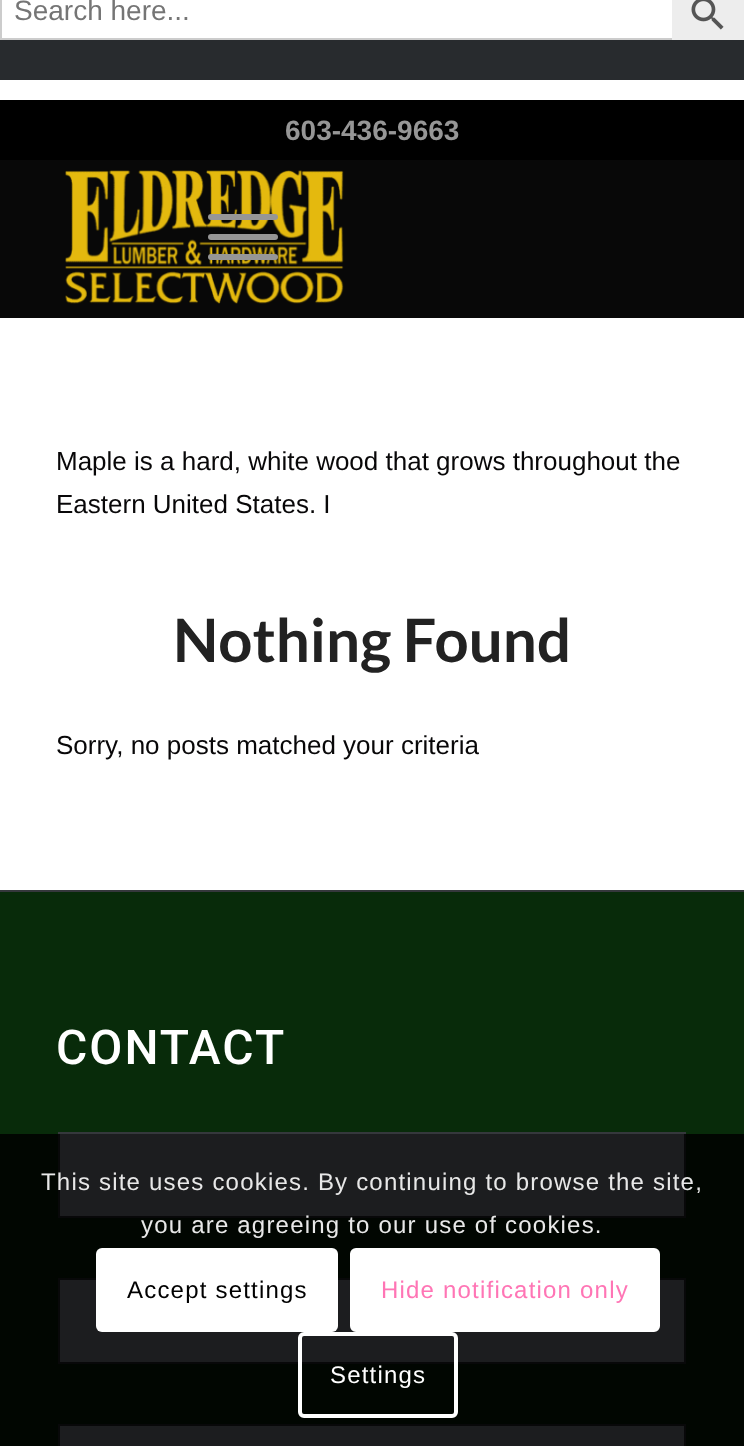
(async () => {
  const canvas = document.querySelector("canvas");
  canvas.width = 744;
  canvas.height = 1446;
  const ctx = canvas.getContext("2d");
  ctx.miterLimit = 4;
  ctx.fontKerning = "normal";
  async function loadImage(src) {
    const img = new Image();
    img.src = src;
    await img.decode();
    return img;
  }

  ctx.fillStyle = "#282b2e";
  ctx.fillRect(0, 0, 744, 1446);
  for (const [x, y, w, h, color] of [
    [2, 0, 670, 38, "#ffffff"],
    [0, 38, 672, 2, "#cccccc"],
    [0, 0, 2, 40, "#cccccc"],
    [672, 0, 72, 40, "#ededed"],
  ]) {
    ctx.fillStyle = color;
    ctx.fillRect(x, y, w, h);
  }
  ctx.drawImage(await loadImage("img/1.png"), 691, 0, 33, 30);
  for (const [x, y, w, h, color] of [
    [0, 80, 744, 20, "#ffffff"],
    [0, 100, 744, 60, "#000000"],
    [0, 160, 744, 158, "#080808"],
  ]) {
    ctx.fillStyle = color;
    ctx.fillRect(x, y, w, h);
  }
  ctx.drawImage(await loadImage("img/2.png"), 65, 170, 279, 134);
  ctx.fillStyle = "#969696";
  ctx.beginPath();
  ctx.roundRect(208, 234, 70, 6, 3);
  ctx.fill();
  ctx.beginPath();
  ctx.roundRect(208, 214, 70, 6, 3);
  ctx.fill();
  ctx.beginPath();
  ctx.roundRect(208, 254, 70, 6, 3);
  ctx.fill();
  for (const [x, y, w, h, color] of [
    [0, 318, 744, 572, "#ffffff"],
    [0, 892, 744, 554, "#082b0a"],
    [0, 890, 744, 2, "#35383c"],
  ]) {
    ctx.fillStyle = color;
    ctx.fillRect(x, y, w, h);
  }
  ctx.fillStyle = "#bec4cc";
  ctx.beginPath();
  ctx.rect(59, 1133, 626, 84);
  ctx.fill();
  ctx.strokeStyle = "#35383c";
  ctx.lineWidth = 2;
  ctx.stroke();
  ctx.beginPath();
  ctx.rect(59, 1279, 626, 84);
  ctx.fill();
  ctx.stroke();
  ctx.beginPath();
  ctx.rect(59, 1425, 626, 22);
  ctx.fill();
  ctx.stroke();
  ctx.fillStyle = "rgba(0, 0, 0, 0.85)";
  ctx.fillRect(0, 1134, 744, 312);
  ctx.fillStyle = "#ffffff";
  ctx.beginPath();
  ctx.roundRect(96, 1248, 242, 84, 6);
  ctx.fill();
  ctx.beginPath();
  ctx.roundRect(352, 1250, 306, 80, 4);
  ctx.fill();
  ctx.strokeStyle = "#ffffff";
  ctx.lineWidth = 4;
  ctx.stroke();
  ctx.beginPath();
  ctx.roundRect(300, 1334, 156, 82, 4);
  ctx.stroke();
  ctx.font = "28px Liberation Sans";
  ctx.fillStyle = "#757575";
  ctx.fillText("Search here...", 14, 20);
  ctx.font = "bold 28px Liberation Sans";
  ctx.fillStyle = "#969696";
  ctx.fillText("603-436-9663", 285, 140);
  ctx.font = "26px Liberation Sans";
  ctx.fillStyle = "#080708";
  ctx.fillText("Maple is a hard, white wood that grows throughout the", 56, 470);
  ctx.fillText("Eastern United States. I", 56, 513);
  ctx.font = "bold 60px Lato";
  ctx.fillStyle = "#222222";
  ctx.fillText("Nothing Found", 173, 662);
  ctx.font = "26px Liberation Sans";
  ctx.fillStyle = "#080708";
  ctx.fillText("Sorry, no posts matched your criteria", 56, 754);
  ctx.letterSpacing = "2px";
  ctx.font = "500 48px Roboto";
  ctx.fillStyle = "#ffffff";
  ctx.fillText("CONTACT", 56, 1064);
  ctx.letterSpacing = "1.2px";
  ctx.font = "24px Liberation Sans";
  ctx.fillStyle = "#e8e8e8";
  ctx.fillText("This site uses cookies. By continuing to browse the site,", 41, 1190);
  ctx.fillText("you are agreeing to our use of cookies.", 141, 1233);
  ctx.fillStyle = "#000000";
  ctx.fillText("Accept settings", 127, 1298);
  ctx.fillStyle = "#ff75b5";
  ctx.fillText("Hide notification only", 381, 1298);
  ctx.fillStyle = "#ffffff";
  ctx.fillText("Settings", 330, 1383);
})();
